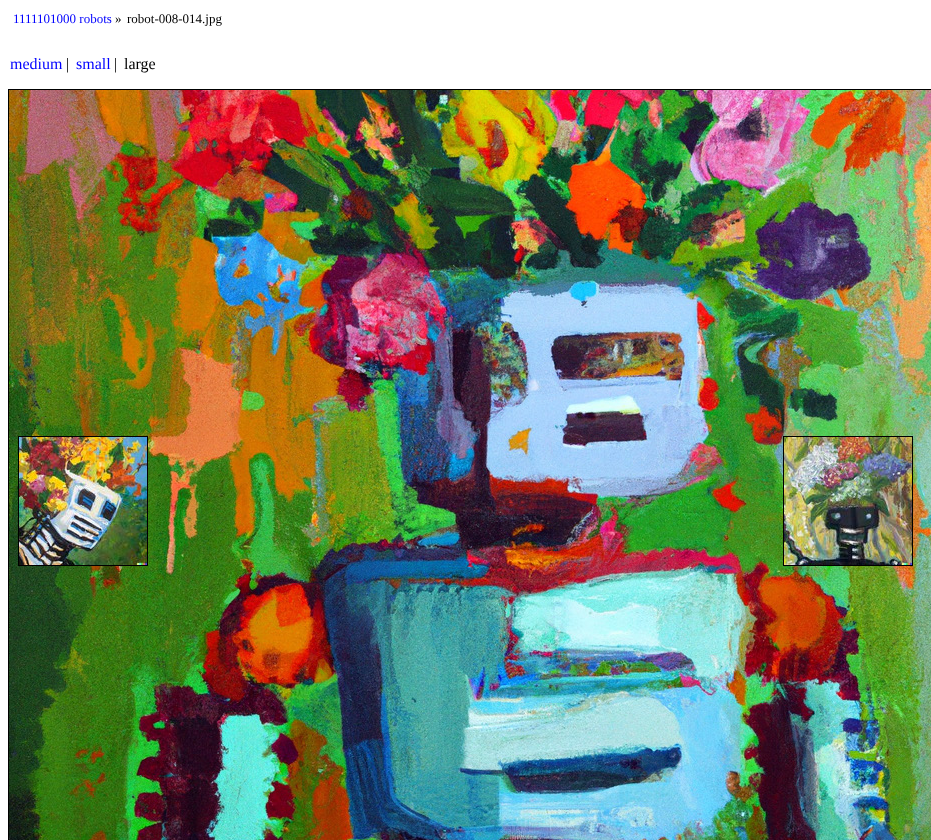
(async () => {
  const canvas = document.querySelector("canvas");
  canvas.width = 931;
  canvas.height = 840;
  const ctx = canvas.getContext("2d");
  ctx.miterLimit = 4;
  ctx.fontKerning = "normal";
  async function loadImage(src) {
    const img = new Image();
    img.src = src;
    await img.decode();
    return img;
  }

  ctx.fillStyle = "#ffffff";
  ctx.fillRect(0, 0, 931, 840);
  ctx.strokeStyle = "#000000";
  ctx.strokeRect(8.5, 89.5, 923, 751);
  ctx.drawImage(await loadImage("img/1.png"), 9, 90, 922, 750);
  ctx.strokeRect(18.5, 436.5, 129, 129);
  ctx.drawImage(await loadImage("img/2.png"), 19, 437, 128, 128);
  ctx.strokeRect(783.5, 436.5, 129, 129);
  ctx.drawImage(await loadImage("img/3.png"), 784, 437, 128, 128);
  ctx.font = "13px Liberation Serif";
  ctx.fillStyle = "#0000ff";
  ctx.fillText("1111101000 robots", 13, 23);
  ctx.fillStyle = "#000000";
  ctx.fillText("»", 115, 23);
  ctx.fillText("robot-008-014.jpg", 127, 23);
  ctx.font = "16px Liberation Serif";
  ctx.fillStyle = "#0000ff";
  ctx.fillText("medium", 10, 69);
  ctx.fillStyle = "#000000";
  ctx.fillText("|", 66, 69);
  ctx.fillStyle = "#0000ff";
  ctx.fillText("small", 76, 69);
  ctx.fillStyle = "#000000";
  ctx.fillText("|", 114, 69);
  ctx.fillText("large", 124, 69);
})();
